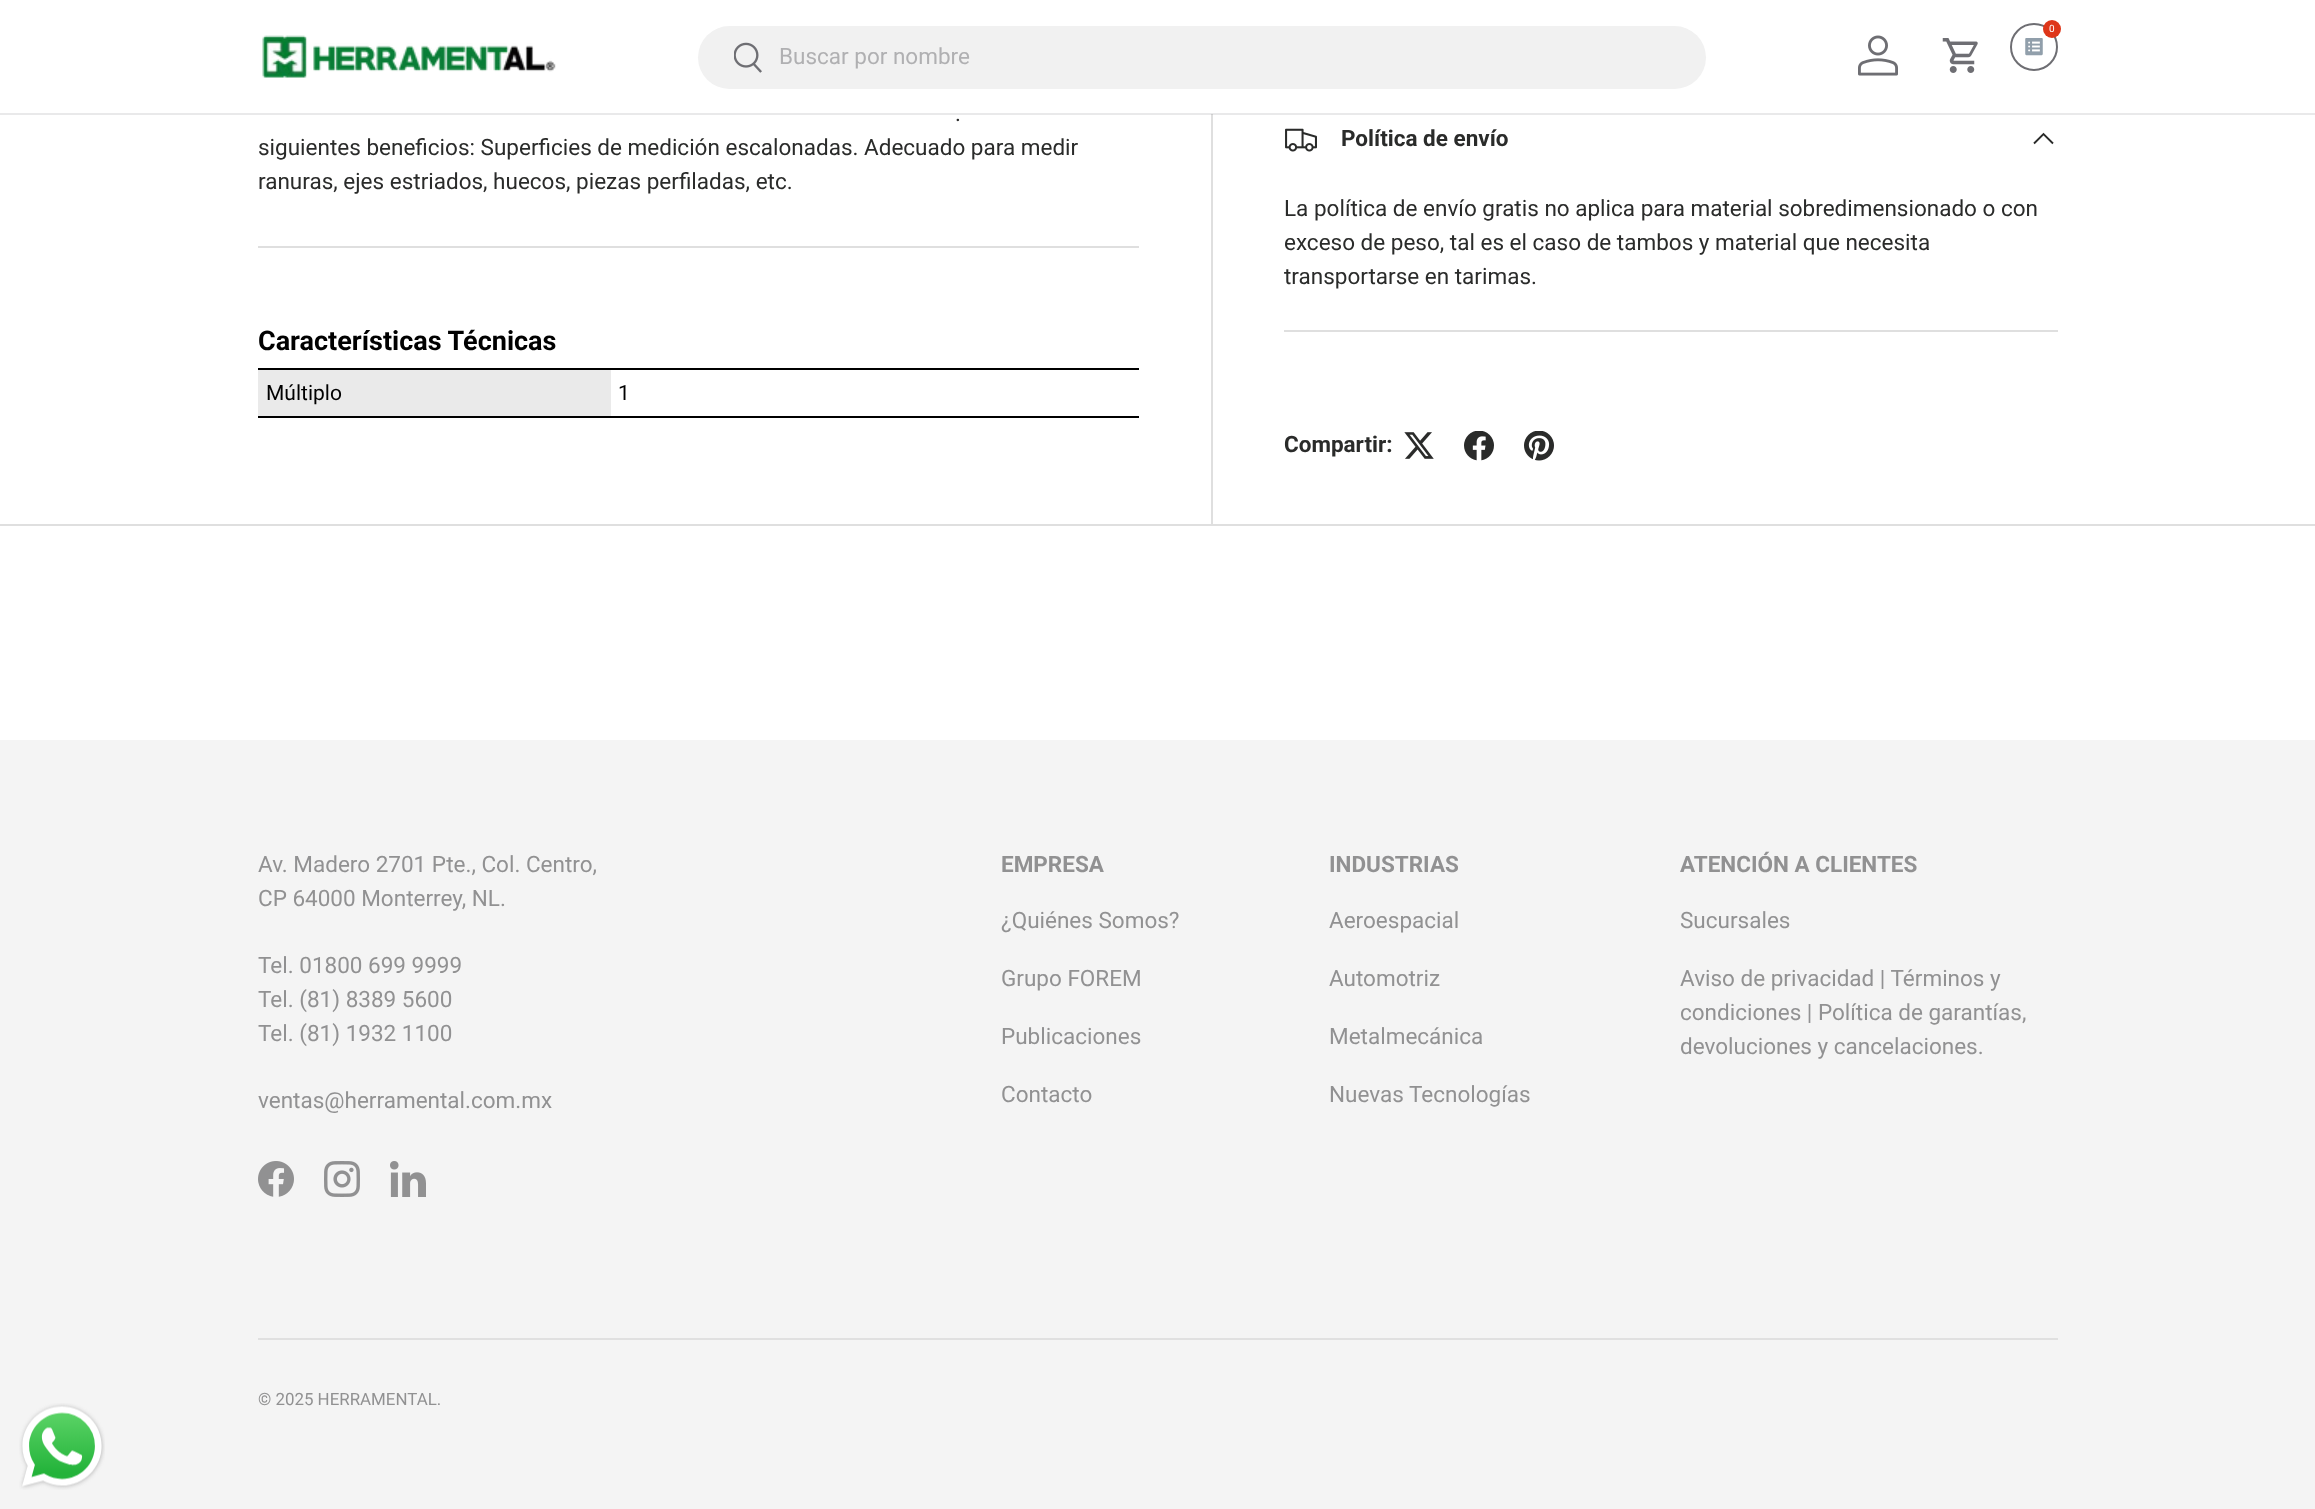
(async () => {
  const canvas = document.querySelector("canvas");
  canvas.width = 2315;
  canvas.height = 1509;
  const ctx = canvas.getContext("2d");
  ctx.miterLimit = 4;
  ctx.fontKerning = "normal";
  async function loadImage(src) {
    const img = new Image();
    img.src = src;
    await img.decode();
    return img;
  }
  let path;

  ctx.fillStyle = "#ffffff";
  ctx.fillRect(0, 0, 2315, 1509);
  for (const [x, y, w, h, color] of [
    [258, 370, 353, 46, "#eaeaea"],
    [0, 524, 2315, 2, "#dfdfdf"],
    [1211, 114, 2, 411, "#dfdfdf"],
    [0, 113, 2315, 2, "rgba(110, 110, 115, 0.15)"],
  ]) {
    ctx.fillStyle = color;
    ctx.fillRect(x, y, w, h);
  }
  ctx.beginPath();
  ctx.arc(2034, 47, 23, 0, Math.PI * 2);
  ctx.strokeStyle = "#6e6e73";
  ctx.lineWidth = 2;
  ctx.stroke();
  ctx.fillStyle = "#de3619";
  ctx.beginPath();
  ctx.arc(2052, 29, 9, 0, Math.PI * 2);
  ctx.fill();
  ctx.drawImage(await loadImage("img/1.png"), 2025, 38, 18, 18);
  ctx.drawImage(await loadImage("img/2.png"), 1858, 35, 40, 41);
  ctx.drawImage(await loadImage("img/3.png"), 1942, 38, 36, 35);
  ctx.drawImage(await loadImage("img/4.png"), 262, 35, 294, 43);
  ctx.fillStyle = "#f1f1f1";
  ctx.beginPath();
  ctx.roundRect(698, 26, 1008, 63, 31.5);
  ctx.fill();
  ctx.drawImage(await loadImage("img/5.png"), 734, 42, 28, 31);
  for (const [x, y, w, h, color] of [
    [258, 246, 881, 2, "#dfdfdf"],
    [258, 368, 881, 2, "#000000"],
    [258, 416, 881, 2, "#000000"],
    [1284, 330, 774, 2, "#dfdfdf"],
  ]) {
    ctx.fillStyle = color;
    ctx.fillRect(x, y, w, h);
  }
  ctx.drawImage(await loadImage("img/6.png"), 1285, 128, 32, 24);
  path = new Path2D("M2053 143.5L2043.5 134L2034 143.5");
  ctx.strokeStyle = "#2a2b2a";
  ctx.lineWidth = 1.9;
  ctx.stroke(path);
  ctx.drawImage(await loadImage("img/7.png"), 1404, 432, 30, 27);
  ctx.drawImage(await loadImage("img/8.png"), 1464, 431, 30, 30);
  ctx.drawImage(await loadImage("img/9.png"), 1524, 431, 30, 30);
  ctx.fillStyle = "#f4f4f4";
  ctx.fillRect(0, 740, 2315, 769);
  ctx.drawImage(await loadImage("img/10.png"), 258, 1161, 36, 36);
  ctx.drawImage(await loadImage("img/11.png"), 324, 1161, 36, 36);
  ctx.drawImage(await loadImage("img/12.png"), 390, 1161, 36, 36);
  ctx.fillStyle = "#e0e0e0";
  ctx.fillRect(258, 1338, 1800, 2);
  ctx.drawImage(await loadImage("img/13.png"), 19, 1403, 86, 87);
  ctx.font = "10px Roboto";
  ctx.fillStyle = "#ffffff";
  ctx.fillText("0", 2049, 32);
  ctx.font = "22.5px Roboto";
  ctx.fillStyle = "#b0b0b2";
  ctx.fillText("Buscar por nombre", 779, 64);
  ctx.fillStyle = "#2a2b2a";
  for (const [text, x, y] of [
    [".", 955, 121],
    ["siguientes beneficios: Superficies de medición escalonadas. Adecuado para medir", 258, 155],
    ["ranuras, ejes estriados, huecos, piezas perfiladas, etc.", 258, 189],
  ]) {
    ctx.fillText(text, x, y);
  }
  ctx.font = "bold 27px Roboto";
  ctx.fillStyle = "#000000";
  ctx.fillText("Características Técnicas", 258, 350);
  ctx.font = "21px Roboto";
  ctx.fillText("Múltiplo", 266, 400);
  ctx.fillText("1", 618, 400);
  ctx.font = "bold 22.5px Roboto";
  ctx.fillStyle = "#2a2b2a";
  ctx.fillText("Política de envío", 1341, 146);
  ctx.font = "22.5px Roboto";
  for (const [text, x, y] of [
    ["La política de envío gratis no aplica para material sobredimensionado o con", 1284, 216],
    ["exceso de peso, tal es el caso de tambos y material que necesita", 1284, 250],
    ["transportarse en tarimas.", 1284, 284],
  ]) {
    ctx.fillText(text, x, y);
  }
  ctx.font = "bold 22.5px Roboto";
  ctx.fillText("Compartir:", 1284, 452);
  ctx.font = "22.5px Roboto";
  ctx.fillStyle = "#919192";
  for (const [text, x, y] of [
    ["Av. Madero 2701 Pte., Col. Centro,", 258, 872],
    ["CP 64000 Monterrey, NL.", 258, 906],
    ["Tel. 01800 699 9999", 258, 973],
    ["Tel. (81) 8389 5600", 258, 1007],
    ["Tel. (81) 1932 1100", 258, 1041],
    ["ventas@herramental.com.mx", 258, 1108],
  ]) {
    ctx.fillText(text, x, y);
  }
  ctx.font = "bold 22.5px Roboto";
  ctx.fillText("EMPRESA", 1001, 872);
  ctx.font = "22.5px Roboto";
  for (const [text, x, y] of [
    ["¿Quiénes Somos?", 1001, 928],
    ["Grupo FOREM", 1001, 986],
    ["Publicaciones", 1001, 1044],
    ["Contacto", 1001, 1102],
  ]) {
    ctx.fillText(text, x, y);
  }
  ctx.font = "bold 22.5px Roboto";
  ctx.fillText("INDUSTRIAS", 1329, 872);
  ctx.font = "22.5px Roboto";
  for (const [text, x, y] of [
    ["Aeroespacial", 1329, 928],
    ["Automotriz", 1329, 986],
    ["Metalmecánica", 1329, 1044],
    ["Nuevas Tecnologías", 1329, 1102],
  ]) {
    ctx.fillText(text, x, y);
  }
  ctx.font = "bold 22.5px Roboto";
  ctx.fillText("ATENCIÓN A CLIENTES", 1680, 872);
  ctx.font = "22.5px Roboto";
  for (const [text, x, y] of [
    ["Sucursales", 1680, 928],
    ["Aviso de privacidad | Términos y", 1680, 986],
    ["condiciones | Política de garantías,", 1680, 1020],
    ["devoluciones y cancelaciones.", 1680, 1054],
  ]) {
    ctx.fillText(text, x, y);
  }
  ctx.font = "16.9px Roboto";
  ctx.fillText("© 2025 HERRAMENTAL.", 258, 1405);
})();
